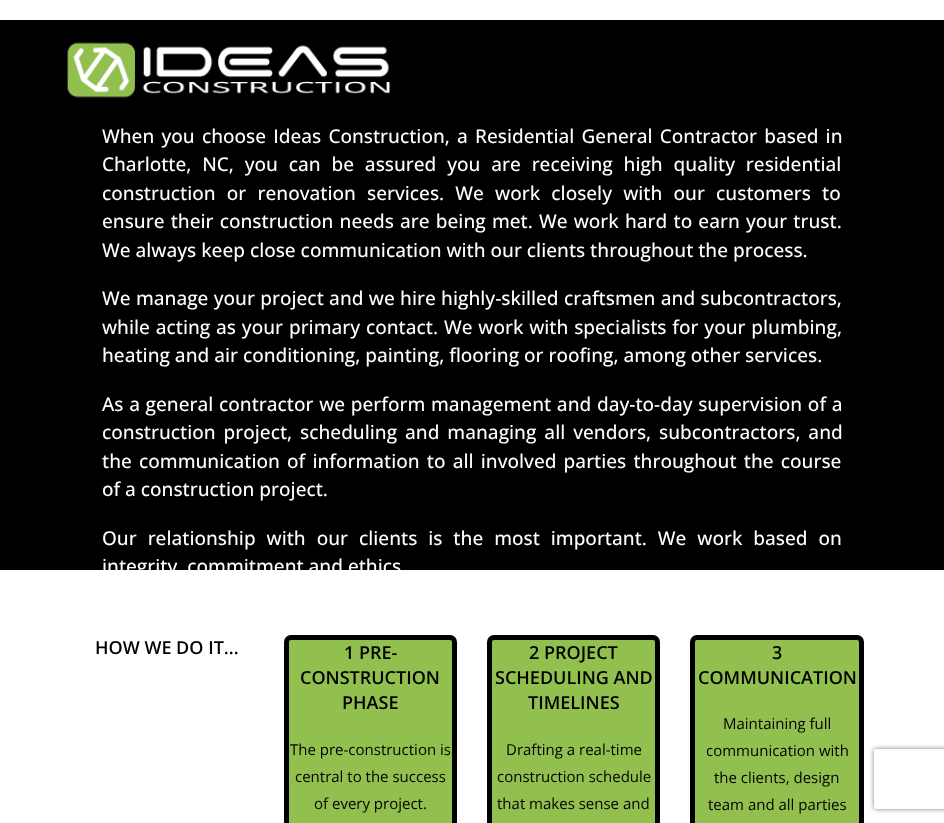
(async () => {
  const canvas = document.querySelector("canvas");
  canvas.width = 944;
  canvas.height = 823;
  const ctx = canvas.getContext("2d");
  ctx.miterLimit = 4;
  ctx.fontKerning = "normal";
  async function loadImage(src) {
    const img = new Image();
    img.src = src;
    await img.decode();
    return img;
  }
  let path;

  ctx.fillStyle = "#ffffff";
  ctx.fillRect(0, 0, 944, 823);
  ctx.fillStyle = "#000000";
  ctx.fillRect(0, 20, 944, 550);
  ctx.drawImage(await loadImage("img/1.png"), 67, 42, 323, 56);
  ctx.fillStyle = "#91c04e";
  ctx.beginPath();
  ctx.roundRect(286.5, 637.5, 168, 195, 4.5);
  ctx.fill();
  ctx.strokeStyle = "#000000";
  ctx.lineWidth = 5;
  ctx.stroke();
  ctx.beginPath();
  ctx.roundRect(489.5, 637.5, 168, 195, 4.5);
  ctx.fill();
  ctx.stroke();
  ctx.beginPath();
  ctx.roundRect(692.5, 637.5, 169, 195, 4.5);
  ctx.fill();
  ctx.stroke();
  ctx.save();
  path = new Path2D("M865 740H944V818H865ZM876 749H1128C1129 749 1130 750 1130 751V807C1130 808 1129 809 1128 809H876C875 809 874 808 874 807V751C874 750 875 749 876 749Z");
  ctx.clip(path, "evenodd");
  ctx.fillStyle = "#808080";
  ctx.filter = "blur(2.5px)";
  ctx.beginPath();
  ctx.roundRect(874, 749, 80, 60, 2);
  ctx.fill();
  ctx.filter = "none";
  ctx.restore();
  ctx.wordSpacing = "2.25px";
  ctx.font = "500 19px Open Sans";
  ctx.fillStyle = "#ffffff";
  ctx.fillText("When you choose Ideas Construction, a Residential General Contractor based in", 102, 143);
  ctx.wordSpacing = "5.9px";
  ctx.fillText("Charlotte, NC, you can be assured you are receiving high quality residential", 102, 171);
  ctx.wordSpacing = "6.25px";
  ctx.fillText("construction or renovation services. We work closely with our customers to", 102, 200);
  ctx.wordSpacing = "1.25px";
  ctx.fillText("ensure their construction needs are being met. We work hard to earn your trust.", 102, 228);
  ctx.wordSpacing = "0px";
  ctx.fillText("We always keep close communication with our clients throughout the process.", 102, 257);
  ctx.wordSpacing = "0.4px";
  ctx.fillText("We manage your project and we hire highly-skilled craftsmen and subcontractors,", 102, 305);
  ctx.wordSpacing = "0.9px";
  ctx.fillText("while acting as your primary contact. We work with specialists for your plumbing,", 102, 334);
  ctx.wordSpacing = "0px";
  ctx.fillText("heating and air conditioning, painting, flooring or roofing, among other services.", 102, 362);
  ctx.wordSpacing = "0.75px";
  ctx.fillText("As a general contractor we perform management and day-to-day supervision of a", 102, 411);
  ctx.wordSpacing = "3px";
  ctx.fillText("construction project, scheduling and managing all vendors, subcontractors, and", 102, 439);
  ctx.wordSpacing = "2.25px";
  ctx.fillText("the communication of information to all involved parties throughout the course", 102, 468);
  ctx.wordSpacing = "0px";
  ctx.fillText("of a construction project.", 102, 496);
  ctx.wordSpacing = "6px";
  ctx.fillText("Our relationship with our clients is the most important. We work based on", 102, 545);
  ctx.wordSpacing = "0px";
  ctx.fillText("integrity, commitment and ethics", 102, 573);
  ctx.font = "600 18px Open Sans";
  ctx.fillStyle = "#000000";
  for (const [text, x, y] of [
    ["HOW WE DO IT...", 95, 654],
    ["1 PRE-", 344, 659],
    ["CONSTRUCTION", 300, 684],
    ["PHASE", 342, 709],
  ]) {
    ctx.fillText(text, x, y);
  }
  ctx.font = "15px Open Sans";
  for (const [text, x, y] of [
    ["The pre-construction is", 290, 755],
    ["central to the success", 295, 782],
    ["of every project.", 314, 809],
  ]) {
    ctx.fillText(text, x, y);
  }
  ctx.font = "600 18px Open Sans";
  for (const [text, x, y] of [
    ["2 PROJECT", 529, 659],
    ["SCHEDULING AND", 495, 684],
    ["TIMELINES", 528, 709],
  ]) {
    ctx.fillText(text, x, y);
  }
  ctx.font = "15px Open Sans";
  for (const [text, x, y] of [
    ["Drafting a real-time", 506, 755],
    ["construction schedule", 497, 782],
    ["that makes sense and", 497, 809],
  ]) {
    ctx.fillText(text, x, y);
  }
  ctx.font = "600 18px Open Sans";
  ctx.fillText("3", 772, 659);
  ctx.fillText("COMMUNICATION", 698, 684);
  ctx.font = "15px Open Sans";
  for (const [text, x, y] of [
    ["Maintaining full", 723, 729],
    ["communication with", 706, 756],
    ["the clients, design", 714, 783],
    ["team and all parties", 708, 810],
  ]) {
    ctx.fillText(text, x, y);
  }
})();
